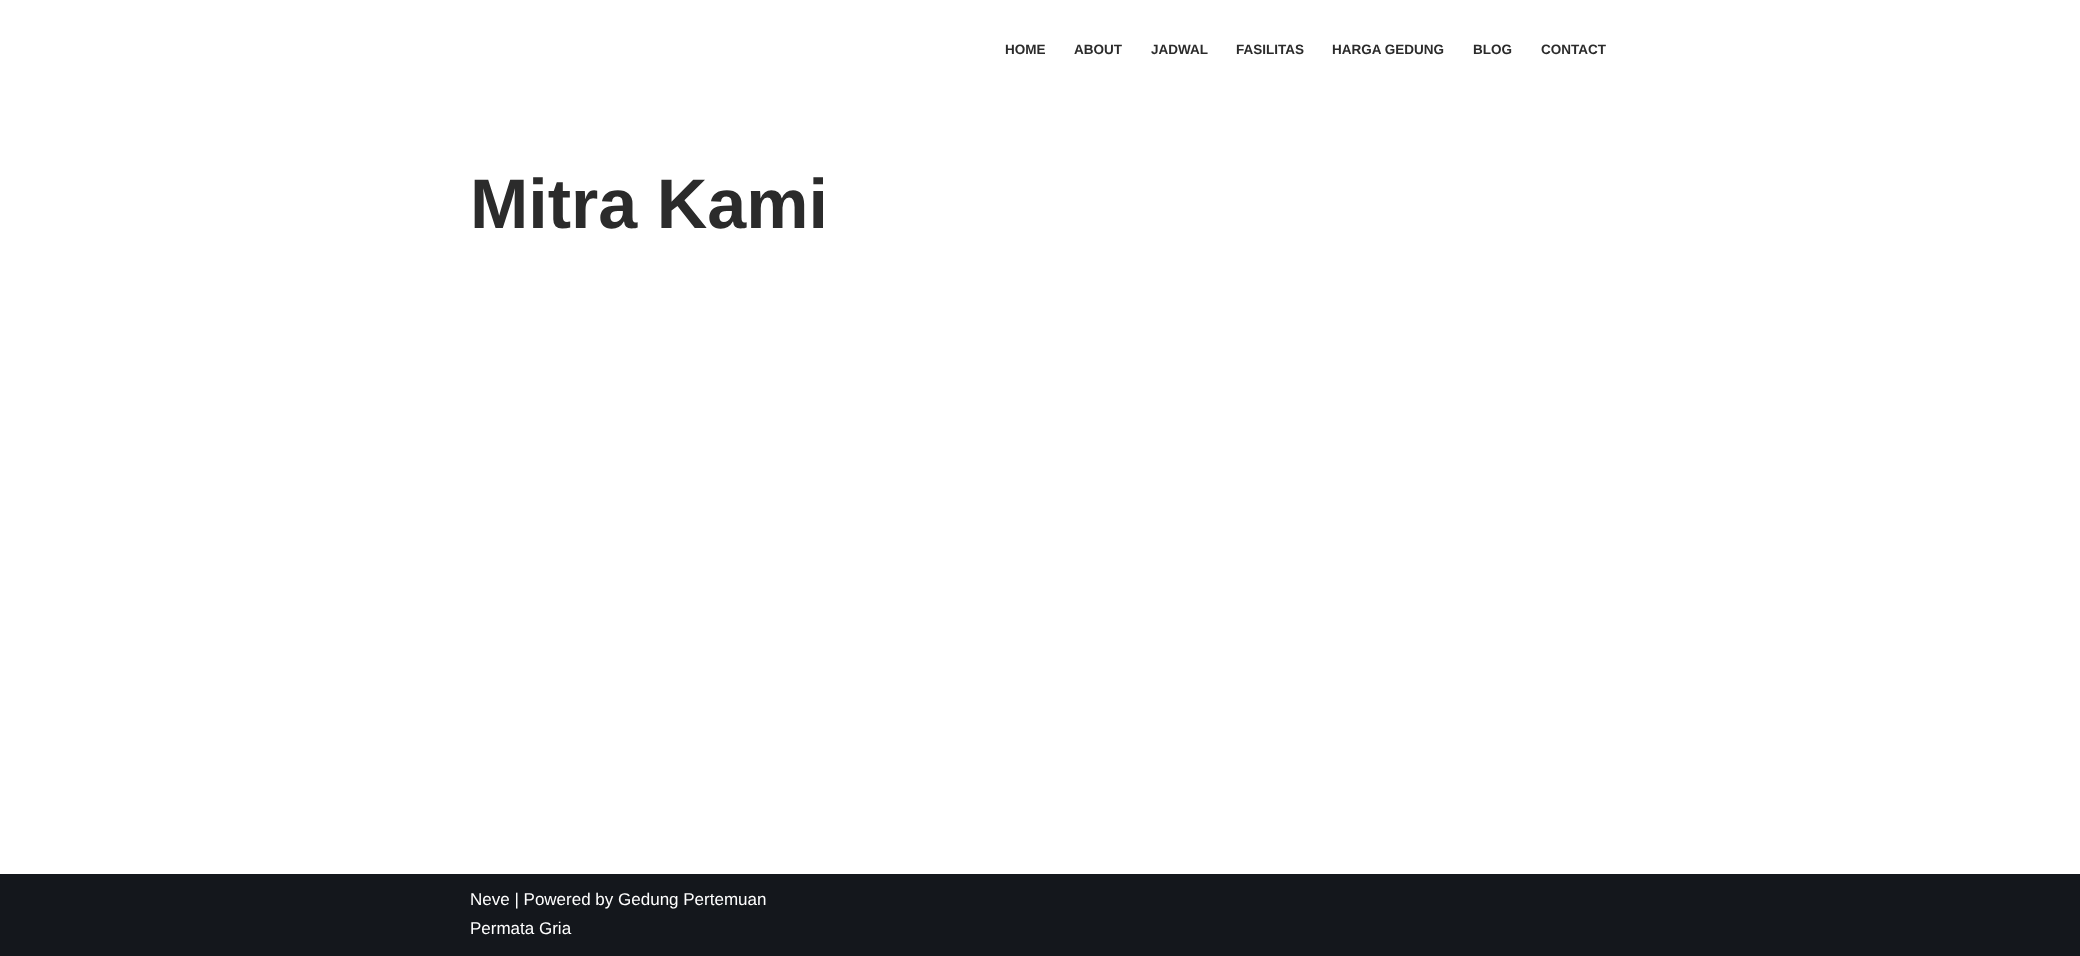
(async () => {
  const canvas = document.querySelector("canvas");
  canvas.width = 2080;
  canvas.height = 956;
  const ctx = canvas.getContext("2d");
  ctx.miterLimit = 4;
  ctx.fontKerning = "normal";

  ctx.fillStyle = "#ffffff";
  ctx.fillRect(0, 0, 2080, 956);
  ctx.fillStyle = "#14171c";
  ctx.fillRect(0, 874, 2080, 82);
  ctx.font = "bold 13.5px Liberation Sans";
  ctx.fillStyle = "#2b2b2b";
  for (const [text, x, y] of [
    ["HOME", 1005, 54],
    ["ABOUT", 1074, 54],
    ["JADWAL", 1151, 54],
    ["FASILITAS", 1236, 54],
    ["HARGA GEDUNG", 1332, 54],
    ["BLOG", 1473, 54],
    ["CONTACT", 1541, 54],
  ]) {
    ctx.fillText(text, x, y);
  }
  ctx.font = "bold 70px Liberation Sans";
  ctx.fillText("Mitra Kami", 470, 228);
  ctx.font = "17px Liberation Sans";
  ctx.fillStyle = "#ffffff";
  ctx.fillText("Neve | Powered by Gedung Pertemuan", 470, 905);
  ctx.fillText("Permata Gria", 470, 934);
})();
